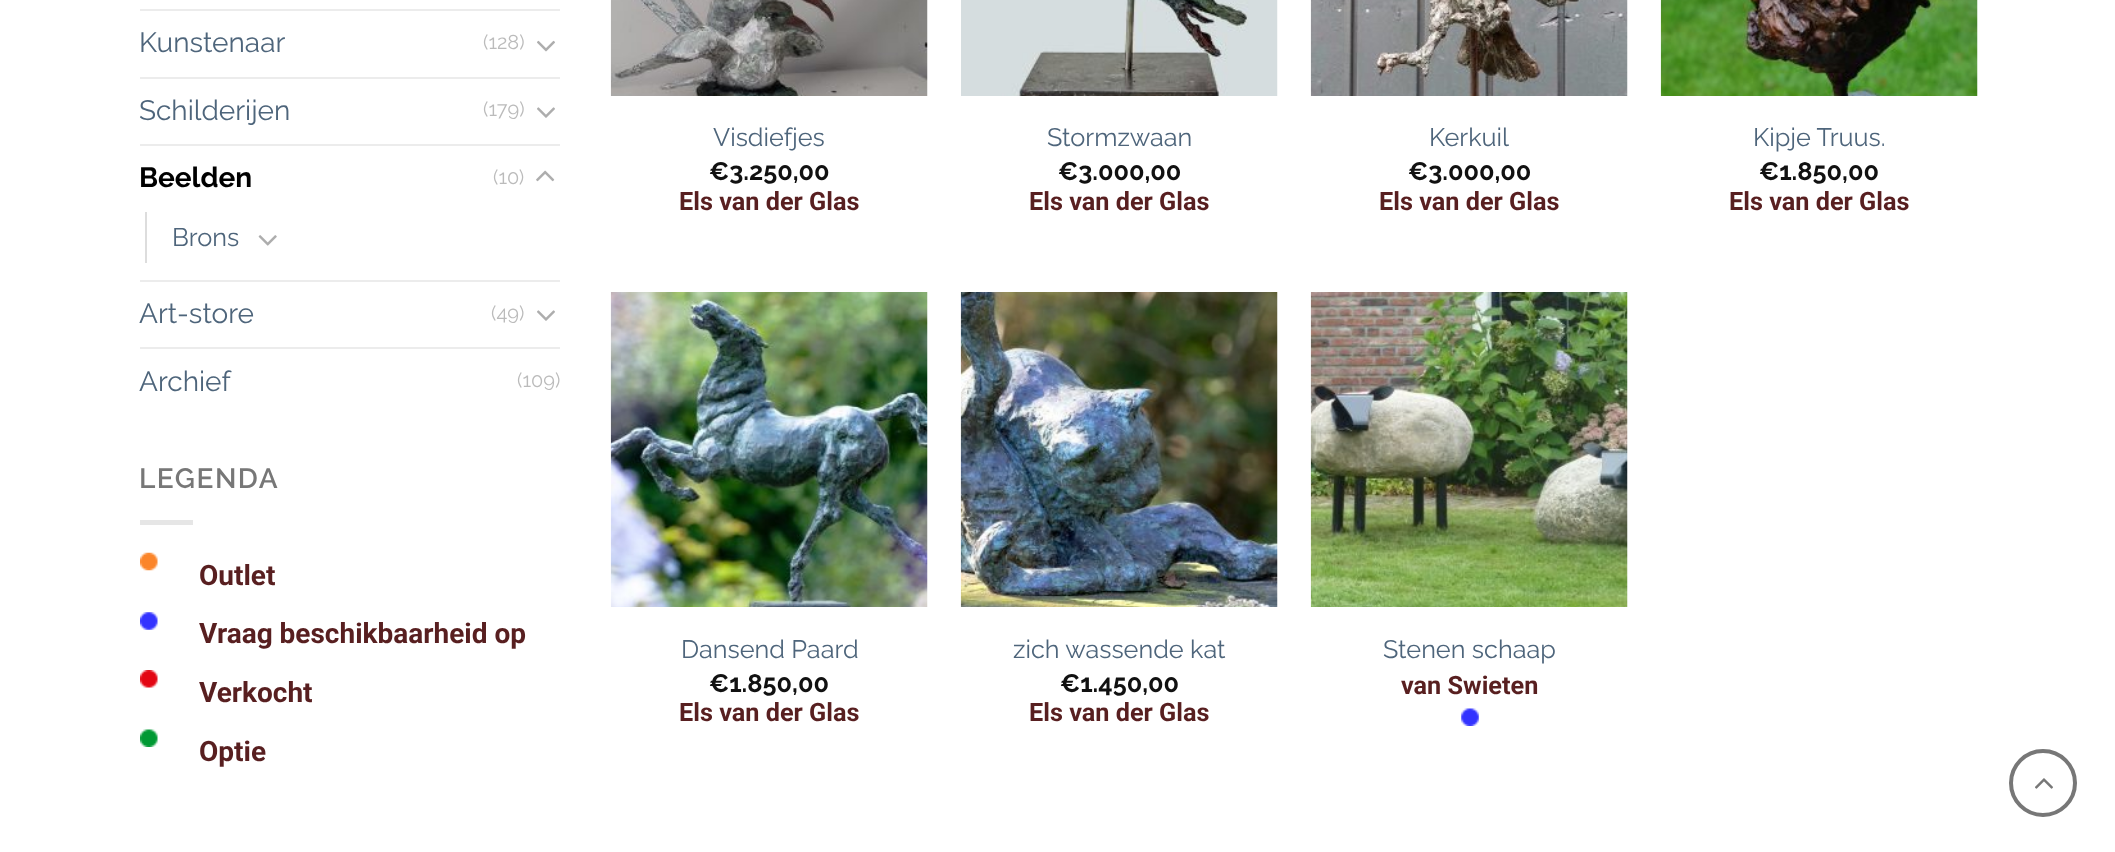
(async () => {
  const canvas = document.querySelector("canvas");
  canvas.width = 2115;
  canvas.height = 852;
  const ctx = canvas.getContext("2d");
  ctx.miterLimit = 4;
  ctx.fontKerning = "normal";
  async function loadImage(src) {
    const img = new Image();
    img.src = src;
    await img.decode();
    return img;
  }

  ctx.fillStyle = "#ffffff";
  ctx.fillRect(0, 0, 2115, 852);
  ctx.fillStyle = "#ececec";
  ctx.fillRect(140, 9, 420, 2);
  ctx.drawImage(await loadImage("img/1.png"), 537, 40, 18, 12);
  ctx.fillRect(140, 77, 420, 2);
  ctx.drawImage(await loadImage("img/2.png"), 537, 107, 18, 11);
  ctx.fillRect(140, 144, 420, 2);
  ctx.drawImage(await loadImage("img/3.png"), 536, 170, 19, 12);
  ctx.fillStyle = "#dddddd";
  ctx.fillRect(145, 212, 2, 51);
  ctx.drawImage(await loadImage("img/4.png"), 258, 235, 19, 11);
  ctx.fillStyle = "#ececec";
  ctx.fillRect(140, 280, 420, 2);
  ctx.drawImage(await loadImage("img/2.png"), 537, 310, 18, 11);
  ctx.fillRect(140, 347, 420, 2);
  ctx.fillStyle = "#e6e6e6";
  ctx.fillRect(140, 520, 53, 5);
  ctx.drawImage(await loadImage("img/5.png"), 140, 552, 18, 19);
  ctx.drawImage(await loadImage("img/6.png"), 140, 612, 18, 18);
  ctx.drawImage(await loadImage("img/7.png"), 140, 670, 18, 18);
  ctx.drawImage(await loadImage("img/8.png"), 140, 729, 18, 18);
  ctx.drawImage(await loadImage("img/9.png"), 610, 0, 318, 96);
  ctx.drawImage(await loadImage("img/10.png"), 961, 0, 317, 96);
  ctx.drawImage(await loadImage("img/11.png"), 1310, 0, 318, 96);
  ctx.drawImage(await loadImage("img/12.png"), 1660, 0, 318, 96);
  ctx.drawImage(await loadImage("img/13.png"), 610, 292, 318, 315);
  ctx.drawImage(await loadImage("img/14.png"), 960, 292, 318, 315);
  ctx.drawImage(await loadImage("img/15.png"), 1310, 292, 318, 315);
  ctx.drawImage(await loadImage("img/16.png"), 1461, 708, 18, 18);
  ctx.beginPath();
  ctx.arc(2043, 783, 32, 0, Math.PI * 2);
  ctx.strokeStyle = "#777777";
  ctx.lineWidth = 4;
  ctx.stroke();
  ctx.drawImage(await loadImage("img/17.png"), 2035, 778, 18, 11);
  ctx.font = "28px Raleway";
  ctx.fillStyle = "#4e657b";
  ctx.fillText("Kunstenaar", 139, 52);
  ctx.font = "20px Raleway";
  ctx.fillStyle = "#bbbbbb";
  ctx.fillText("(128)", 483, 49);
  ctx.font = "28px Raleway";
  ctx.fillStyle = "#4e657b";
  ctx.fillText("Schilderijen", 139, 120);
  ctx.font = "20px Raleway";
  ctx.fillStyle = "#bbbbbb";
  ctx.fillText("(179)", 483, 116);
  ctx.font = "bold 28px Raleway";
  ctx.fillStyle = "#000000";
  ctx.fillText("Beelden", 139, 187);
  ctx.font = "20px Raleway";
  ctx.fillStyle = "#bbbbbb";
  ctx.fillText("(10)", 493, 184);
  ctx.font = "25.25px Raleway";
  ctx.fillStyle = "#4e657b";
  ctx.fillText("Brons", 172, 246);
  ctx.font = "28px Raleway";
  ctx.fillText("Art-store", 139, 323);
  ctx.font = "20px Raleway";
  ctx.fillStyle = "#bbbbbb";
  ctx.fillText("(49)", 491, 320);
  ctx.font = "28px Raleway";
  ctx.fillStyle = "#4e657b";
  ctx.fillText("Archief", 139, 391);
  ctx.font = "20px Raleway";
  ctx.fillStyle = "#bbbbbb";
  ctx.fillText("(109)", 517, 387);
  ctx.letterSpacing = "1.5px";
  ctx.font = "600 28px Raleway";
  ctx.fillStyle = "#777777";
  ctx.fillText("LEGENDA", 139, 488);
  ctx.letterSpacing = "0px";
  ctx.font = "bold 28px Roboto";
  ctx.fillStyle = "#581f20";
  for (const [text, x, y] of [
    ["Outlet", 199, 585],
    ["Vraag beschikbaarheid op", 199, 643],
    ["Verkocht", 199, 702],
    ["Optie", 199, 761],
  ]) {
    ctx.fillText(text, x, y);
  }
  ctx.font = "25.25px Raleway";
  ctx.fillStyle = "#4e657b";
  ctx.fillText("Visdiefjes", 713, 146);
  ctx.font = "bold 25.25px Raleway";
  ctx.fillStyle = "#111111";
  ctx.fillText("€3.250,00", 709, 180);
  ctx.font = "bold 25.25px Roboto";
  ctx.fillStyle = "#581f20";
  ctx.fillText("Els van der Glas", 679, 210);
  ctx.font = "25.25px Raleway";
  ctx.fillStyle = "#4e657b";
  ctx.fillText("Stormzwaan", 1047, 146);
  ctx.font = "bold 25.25px Raleway";
  ctx.fillStyle = "#111111";
  ctx.fillText("€3.000,00", 1058, 180);
  ctx.font = "bold 25.25px Roboto";
  ctx.fillStyle = "#581f20";
  ctx.fillText("Els van der Glas", 1029, 210);
  ctx.font = "25.25px Raleway";
  ctx.fillStyle = "#4e657b";
  ctx.fillText("Kerkuil", 1429, 146);
  ctx.font = "bold 25.25px Raleway";
  ctx.fillStyle = "#111111";
  ctx.fillText("€3.000,00", 1408, 180);
  ctx.font = "bold 25.25px Roboto";
  ctx.fillStyle = "#581f20";
  ctx.fillText("Els van der Glas", 1379, 210);
  ctx.font = "25.25px Raleway";
  ctx.fillStyle = "#4e657b";
  ctx.fillText("Kipje Truus.", 1753, 146);
  ctx.font = "bold 25.25px Raleway";
  ctx.fillStyle = "#111111";
  ctx.fillText("€1.850,00", 1759, 180);
  ctx.font = "bold 25.25px Roboto";
  ctx.fillStyle = "#581f20";
  ctx.fillText("Els van der Glas", 1729, 210);
  ctx.font = "25.25px Raleway";
  ctx.fillStyle = "#4e657b";
  ctx.fillText("Dansend Paard", 681, 658);
  ctx.font = "bold 25.25px Raleway";
  ctx.fillStyle = "#111111";
  ctx.fillText("€1.850,00", 709, 692);
  ctx.font = "bold 25.25px Roboto";
  ctx.fillStyle = "#581f20";
  ctx.fillText("Els van der Glas", 679, 721);
  ctx.font = "25.25px Raleway";
  ctx.fillStyle = "#4e657b";
  ctx.fillText("zich wassende kat", 1013, 658);
  ctx.font = "bold 25.25px Raleway";
  ctx.fillStyle = "#111111";
  ctx.fillText("€1.450,00", 1060, 692);
  ctx.font = "bold 25.25px Roboto";
  ctx.fillStyle = "#581f20";
  ctx.fillText("Els van der Glas", 1029, 721);
  ctx.font = "25.25px Raleway";
  ctx.fillStyle = "#4e657b";
  ctx.fillText("Stenen schaap", 1383, 658);
  ctx.font = "bold 25.25px Roboto";
  ctx.fillStyle = "#581f20";
  ctx.fillText("van Swieten", 1401, 694);
})();
